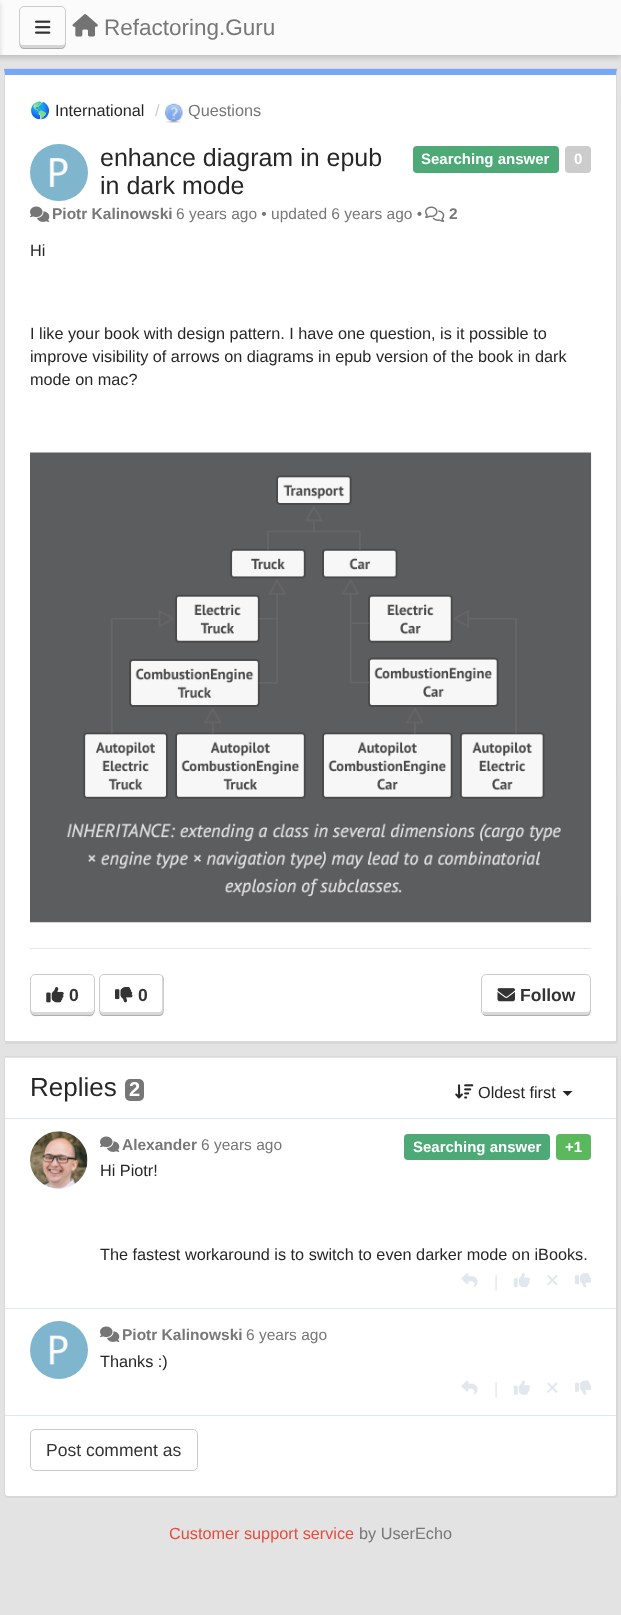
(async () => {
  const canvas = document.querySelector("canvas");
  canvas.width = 621;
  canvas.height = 1615;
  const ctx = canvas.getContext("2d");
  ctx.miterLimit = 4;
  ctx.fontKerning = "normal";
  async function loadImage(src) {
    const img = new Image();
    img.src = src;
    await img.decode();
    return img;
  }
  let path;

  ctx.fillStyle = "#e3e3e3";
  ctx.fillRect(0, 0, 621, 1615);
  ctx.fillStyle = "rgba(0, 0, 0, 0.15)";
  ctx.filter = "blur(2.5px)";
  ctx.beginPath();
  ctx.rect(0, 3, 621, 55);
  ctx.fill();
  ctx.filter = "none";
  ctx.fillStyle = "#fbfbfb";
  ctx.fillRect(0, 0, 621, 55);
  ctx.fillStyle = "rgba(0, 0, 0, 0.15)";
  ctx.filter = "blur(2.5px)";
  ctx.beginPath();
  ctx.rect(-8, 3, 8, 55);
  ctx.fill();
  ctx.filter = "none";
  ctx.beginPath();
  ctx.roundRect(19.5, 6.5, 46, 42, 4.5);
  ctx.strokeStyle = "#cccccc";
  ctx.stroke();
  ctx.drawImage(await loadImage("img/1.png"), 35, 20, 16, 14);
  path = new Path2D("M20 42C20 50 21 49 30 49H56C64 49 65 50 65 42C65 44 64 45 62 45H23C21 45 20 44 20 42Z");
  ctx.fill(path);
  ctx.drawImage(await loadImage("img/2.png"), 72, 14, 26, 23);
  ctx.fillStyle = "#d8d8d8";
  ctx.fillRect(4, 68, 614, 1);
  ctx.fillStyle = "#ffffff";
  path = new Path2D("M5 75H616V1040C616 1041 615 1041 614 1041H8C6 1041 5 1041 5 1040Z");
  ctx.fill(path);
  ctx.fillStyle = "#76a7fa";
  path = new Path2D("M4 69L5 75H616V76L617 69Z");
  ctx.fill(path);
  ctx.fillStyle = "#d8d8d8";
  path = new Path2D("M618 1042L617 1043L616 1041V76L617 69Z");
  ctx.fill(path);
  path = new Path2D("M6 1044L5 1042V1041H614H616L617 1043L615 1044Z");
  ctx.fill(path);
  path = new Path2D("M5 75L4 70V1040L5 1042V1041V1040Z");
  ctx.fill(path);
  ctx.drawImage(await loadImage("img/3.png"), 164, 103, 19, 20);
  ctx.fillStyle = "#7fb6ce";
  ctx.beginPath();
  ctx.roundRect(30, 144, 58, 57, 28.5);
  ctx.fill();
  ctx.drawImage(await loadImage("img/4.png"), 49, 158, 19, 29);
  ctx.fillStyle = "#4daa77";
  ctx.beginPath();
  ctx.roundRect(413, 146, 146, 27, 4);
  ctx.fill();
  ctx.fillStyle = "#cccccc";
  ctx.beginPath();
  ctx.roundRect(565, 146, 26, 27, 4);
  ctx.fill();
  ctx.drawImage(await loadImage("img/5.png"), 30, 206, 20, 16);
  ctx.drawImage(await loadImage("img/6.png"), 425, 206, 20, 16);
  ctx.drawImage(await loadImage("img/7.png"), 30, 452, 562, 471);
  ctx.fillStyle = "#e5e5e5";
  ctx.fillRect(30, 948, 561, 1);
  ctx.beginPath();
  ctx.roundRect(30.5, 974.5, 64, 41, 4.5);
  ctx.stroke();
  ctx.drawImage(await loadImage("img/8.png"), 46, 987, 18, 16);
  ctx.fillStyle = "rgba(0, 0, 0, 0.15)";
  path = new Path2D("M31 1009C31 1018 33 1016 44 1016H82C92 1016 94 1018 94 1009C94 1011 92 1012 91 1012H34C33 1012 31 1011 31 1009Z");
  ctx.fill(path);
  ctx.beginPath();
  ctx.roundRect(99.5, 974.5, 64, 41, 4.5);
  ctx.stroke();
  ctx.drawImage(await loadImage("img/9.png"), 115, 987, 18, 16);
  ctx.beginPath();
  ctx.roundRect(481.5, 974.5, 109, 41, 4.5);
  ctx.stroke();
  ctx.drawImage(await loadImage("img/10.png"), 497, 988, 18, 14);
  path = new Path2D("M483 1011V1013C483 1015 484 1016 486 1016H587C589 1016 590 1015 590 1013V1009C590 1011 589 1012 587 1012H486C485 1012 484 1012 483 1011Z");
  ctx.fill(path);
  ctx.fillStyle = "#d8d8d8";
  ctx.fillRect(4, 1056, 614, 1);
  ctx.fillStyle = "#ffffff";
  ctx.beginPath();
  ctx.roundRect(5, 1058, 611, 438, [0, 0, 2.5, 2.5]);
  ctx.fill();
  ctx.fillStyle = "#d8d8d8";
  path = new Path2D("M4 1058H618V1494C618 1496 616 1498 614 1498H8C5 1498 4 1496 4 1494ZM5 1058H616V1494C616 1495 615 1496 614 1496H8C6 1496 5 1495 5 1494Z");
  ctx.fill(path, "evenodd");
  ctx.fillStyle = "#777777";
  ctx.beginPath();
  ctx.roundRect(125, 1079, 19, 22, 5);
  ctx.fill();
  ctx.drawImage(await loadImage("img/11.png"), 455, 1084, 19, 15);
  ctx.fillStyle = "#262626";
  path = new Path2D("M562.5 1091H572.5L567.5 1096Z");
  ctx.fill(path);
  ctx.fillStyle = "#e1e8ed";
  ctx.fillRect(5, 1118, 611, 1);
  ctx.fillRect(5, 1308, 611, 1);
  ctx.drawImage(await loadImage("img/12.png"), 30, 1131, 58, 58);
  ctx.drawImage(await loadImage("img/5.png"), 100, 1136, 20, 16);
  ctx.fillStyle = "#4daa77";
  ctx.beginPath();
  ctx.roundRect(404, 1134, 146, 26, 4);
  ctx.fill();
  ctx.fillStyle = "#5cb85c";
  ctx.beginPath();
  ctx.roundRect(556, 1134, 35, 26, 4);
  ctx.fill();
  ctx.drawImage(await loadImage("img/13.png"), 461, 1273, 17, 14);
  ctx.drawImage(await loadImage("img/14.png"), 513, 1273, 17, 15);
  ctx.drawImage(await loadImage("img/15.png"), 547, 1275, 11, 11);
  ctx.drawImage(await loadImage("img/16.png"), 575, 1273, 17, 15);
  ctx.fillStyle = "#e1e8ed";
  ctx.fillRect(5, 1415, 611, 1);
  ctx.fillStyle = "#7fb6ce";
  ctx.beginPath();
  ctx.arc(59, 1350, 29, 0, Math.PI * 2);
  ctx.fill();
  ctx.drawImage(await loadImage("img/17.png"), 49, 1335, 19, 30);
  ctx.drawImage(await loadImage("img/5.png"), 100, 1326, 20, 16);
  ctx.drawImage(await loadImage("img/18.png"), 461, 1380, 17, 15);
  ctx.drawImage(await loadImage("img/19.png"), 513, 1380, 17, 15);
  ctx.drawImage(await loadImage("img/20.png"), 547, 1382, 11, 11);
  ctx.drawImage(await loadImage("img/21.png"), 575, 1380, 17, 15);
  ctx.beginPath();
  ctx.roundRect(30.5, 1429.5, 167, 41, 4.5);
  ctx.stroke();
  ctx.font = "22.5px Liberation Sans";
  ctx.fillStyle = "#777777";
  ctx.fillText("Refactoring.Guru", 104, 35);
  ctx.font = "16.25px Noto Color Emoji";
  ctx.fillStyle = "#262626";
  ctx.fillText("🌎", 30, 116);
  ctx.font = "16.25px Liberation Sans";
  ctx.fillText("International", 55, 116);
  ctx.fillStyle = "#cccccc";
  ctx.fillText("/", 155, 116);
  ctx.fillStyle = "#777777";
  ctx.fillText("Questions", 188, 116);
  ctx.font = "25px Liberation Sans";
  ctx.fillStyle = "#262626";
  ctx.fillText("enhance diagram in epub", 100, 166);
  ctx.fillText("in dark mode", 100, 194);
  ctx.font = "bold 15px Liberation Sans";
  ctx.fillStyle = "#ffffff";
  ctx.fillText("Searching answer", 421, 164);
  ctx.fillText("0", 574, 164);
  ctx.font = "bold 15.5px Liberation Sans";
  ctx.fillStyle = "#777777";
  ctx.fillText("Piotr Kalinowski", 52, 219);
  ctx.font = "15.5px Liberation Sans";
  ctx.fillText("6 years ago • updated 6 years ago •", 176, 219);
  ctx.font = "bold 15.5px Liberation Sans";
  ctx.fillText("2", 449, 219);
  ctx.font = "16.25px Liberation Sans";
  ctx.fillStyle = "#262626";
  for (const [text, x, y] of [
    ["Hi", 30, 256],
    ["I like your book with design pattern. I have one question, is it possible to", 30, 339],
    ["improve visibility of arrows on diagrams in epub version of the book in dark", 30, 362],
    ["mode on mac?", 30, 385],
  ]) {
    ctx.fillText(text, x, y);
  }
  ctx.font = "bold 17.5px Liberation Sans";
  ctx.fillStyle = "#333333";
  ctx.fillText("0", 69, 1001);
  ctx.fillText("0", 138, 1001);
  ctx.fillStyle = "rgba(0, 0, 0, 0.15)";
  path = new Path2D("M100 1009V1013C100 1015 101 1016 103 1016H160C162 1016 163 1015 163 1013V978C163 977 163 976 162 976V1009C162 1011 161 1012 159 1012H103C101 1012 100 1011 100 1009Z");
  ctx.fill(path);
  ctx.fillStyle = "#333333";
  ctx.fillText("Follow", 520, 1001);
  ctx.font = "26px Liberation Sans";
  ctx.fillStyle = "#262626";
  ctx.fillText("Replies", 30, 1096);
  ctx.font = "bold 20px Liberation Sans";
  ctx.fillStyle = "#ffffff";
  ctx.fillText("2", 129, 1096);
  ctx.font = "16.25px Liberation Sans";
  ctx.fillStyle = "#262626";
  ctx.fillText("Oldest first", 478, 1098);
  ctx.font = "bold 15.5px Liberation Sans";
  ctx.fillStyle = "#777777";
  ctx.fillText("Alexander", 122, 1150);
  ctx.font = "15.5px Liberation Sans";
  ctx.fillText("6 years ago", 201, 1150);
  ctx.font = "bold 15px Liberation Sans";
  ctx.fillStyle = "#ffffff";
  ctx.fillText("Searching answer", 413, 1152);
  ctx.fillText("+1", 565, 1152);
  ctx.font = "16.25px Liberation Sans";
  ctx.fillStyle = "#262626";
  ctx.fillText("Hi Piotr!", 100, 1176);
  ctx.fillText("The fastest workaround is to switch to even darker mode on iBooks.", 100, 1260);
  ctx.fillStyle = "#e1e8ed";
  ctx.fillText("|", 494, 1287);
  ctx.font = "bold 15.5px Liberation Sans";
  ctx.fillStyle = "#777777";
  ctx.fillText("Piotr Kalinowski", 122, 1340);
  ctx.font = "15.5px Liberation Sans";
  ctx.fillText("6 years ago", 246, 1340);
  ctx.font = "16.25px Liberation Sans";
  ctx.fillStyle = "#262626";
  ctx.fillText("Thanks :)", 100, 1367);
  ctx.fillStyle = "#e1e8ed";
  ctx.fillText("|", 494, 1394);
  ctx.font = "17.5px Liberation Sans";
  ctx.fillStyle = "#333333";
  ctx.fillText("Post comment as", 46, 1456);
  ctx.font = "16.25px Liberation Sans";
  ctx.fillStyle = "#e74c3c";
  ctx.fillText("Customer support service", 169, 1539);
  ctx.fillStyle = "#777777";
  ctx.fillText("by UserEcho", 359, 1539);
})();
